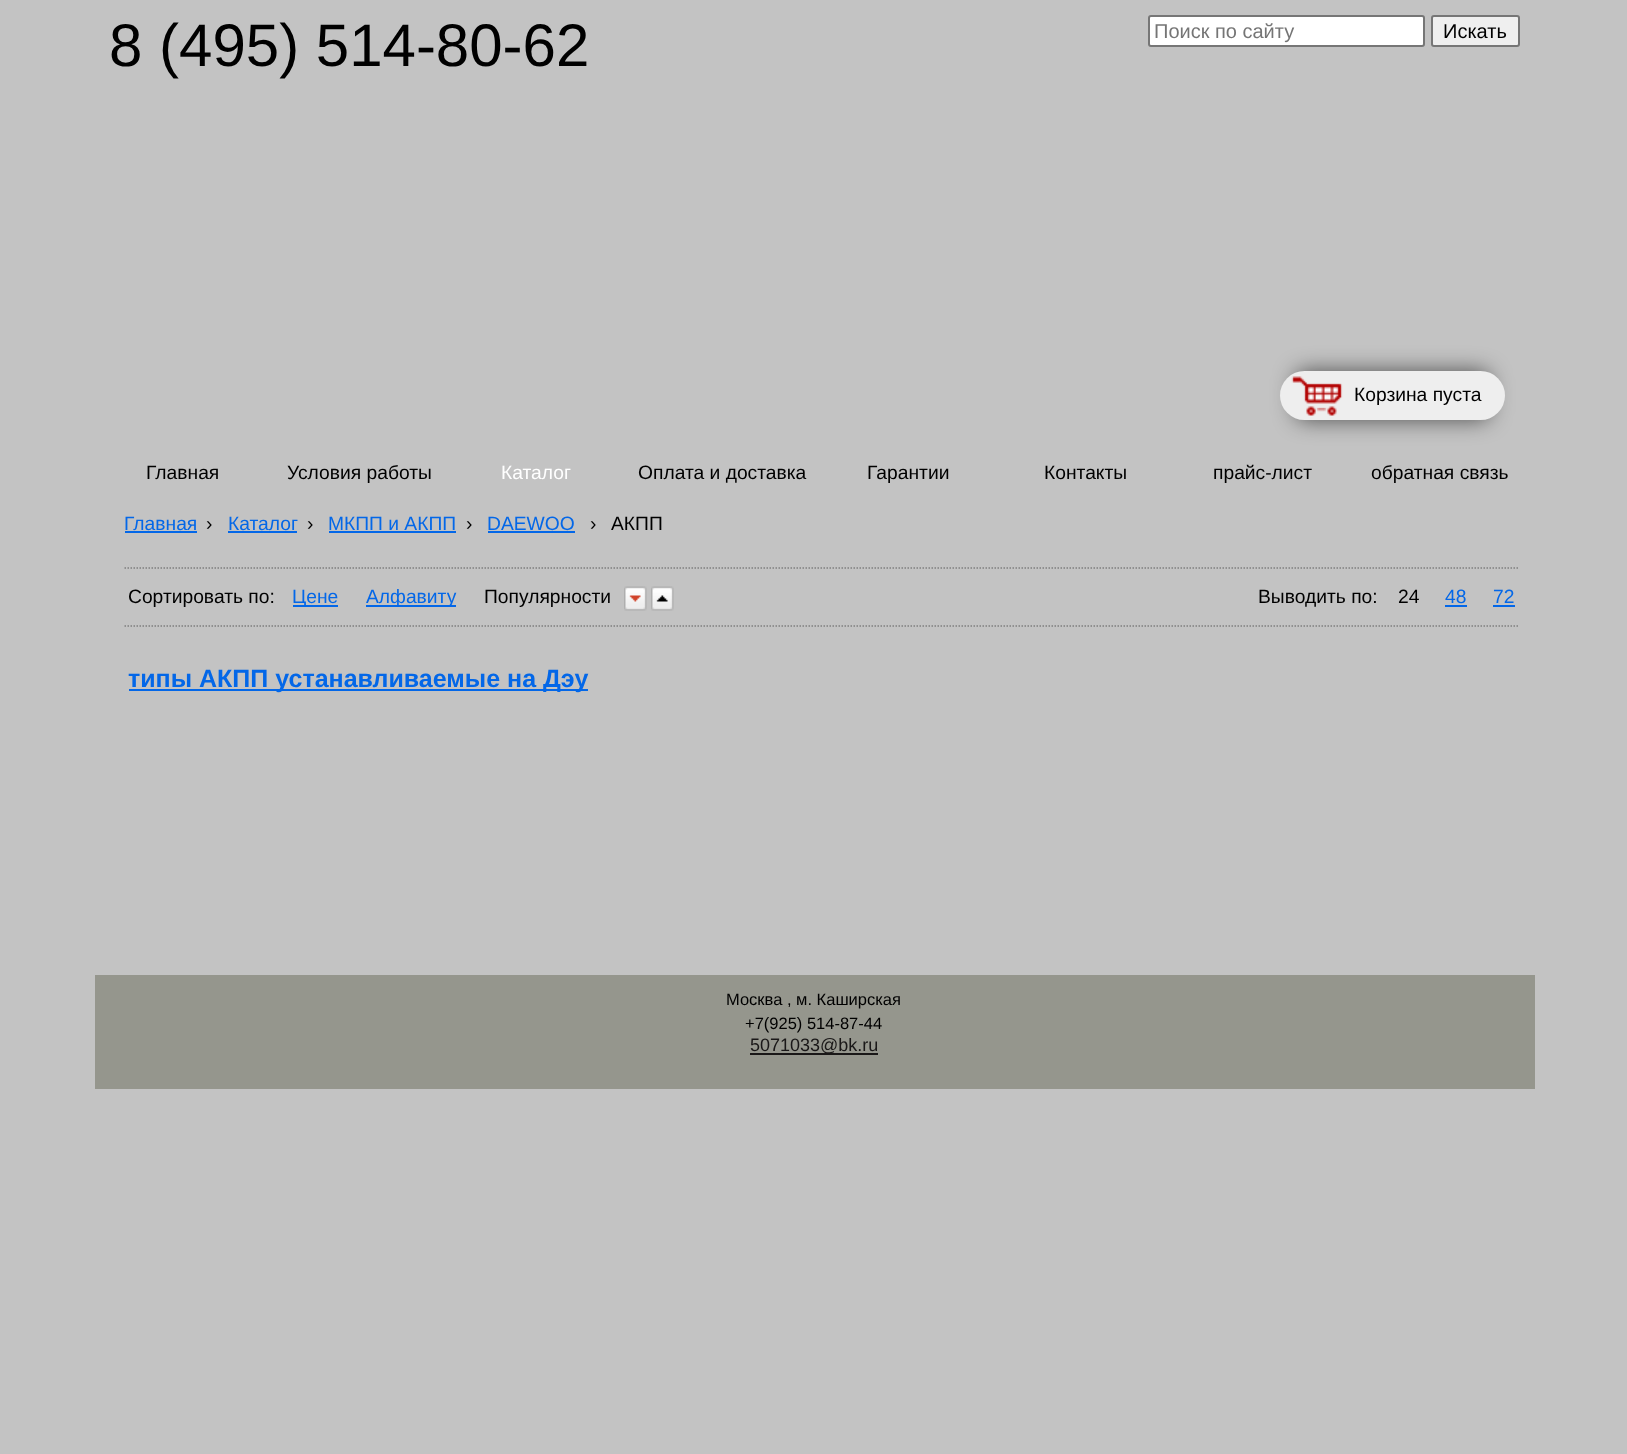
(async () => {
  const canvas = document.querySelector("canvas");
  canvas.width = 1627;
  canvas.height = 1454;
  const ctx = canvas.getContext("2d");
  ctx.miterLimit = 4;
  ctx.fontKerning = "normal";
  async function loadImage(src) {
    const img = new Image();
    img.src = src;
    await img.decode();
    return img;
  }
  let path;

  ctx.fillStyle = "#c3c3c3";
  ctx.fillRect(0, 0, 1627, 1454);
  ctx.fillStyle = "#ffffff";
  ctx.beginPath();
  ctx.roundRect(1149, 16, 275, 30, 2);
  ctx.fill();
  ctx.strokeStyle = "#767676";
  ctx.lineWidth = 2;
  ctx.stroke();
  ctx.fillStyle = "#efefef";
  ctx.beginPath();
  ctx.roundRect(1432, 16, 87, 30, 2);
  ctx.fill();
  ctx.stroke();
  ctx.fillStyle = "rgba(0, 0, 0, 0.6)";
  ctx.filter = "blur(11px)";
  ctx.beginPath();
  ctx.roundRect(1295, 371, 195, 49, 11);
  ctx.fill();
  ctx.filter = "none";
  ctx.fillStyle = "#eeeeee";
  ctx.beginPath();
  ctx.roundRect(1280, 371, 225, 49, 24.5);
  ctx.fill();
  ctx.drawImage(await loadImage("img/1.png"), 1291, 376, 52, 40);
  for (const [x, y, w, h, color] of [
    [125, 531, 72, 2, "#0367e8"],
    [228, 531, 69, 2, "#0367e8"],
    [329, 531, 127, 2, "#0367e8"],
    [488, 531, 87, 2, "#0367e8"],
  ]) {
    ctx.fillStyle = color;
    ctx.fillRect(x, y, w, h);
  }
  path = new Path2D("M124.5 568H1519.5");
  ctx.strokeStyle = "#7f7f7f";
  ctx.lineWidth = 1.5;
  ctx.setLineDash([1.5, 1.5]);
  ctx.stroke(path);
  path = new Path2D("M124.5 626H1519.5");
  ctx.stroke(path);
  ctx.fillRect(293, 605, 45, 2);
  ctx.fillRect(366, 605, 90, 2);
  ctx.drawImage(await loadImage("img/2.png"), 624, 586, 23, 25);
  ctx.drawImage(await loadImage("img/3.png"), 651, 586, 23, 25);
  for (const [x, y, w, h, color] of [
    [1445, 605, 22, 2, "#0367e8"],
    [1493, 605, 22, 2, "#0367e8"],
    [129, 689, 459, 2, "#0367e8"],
    [95, 975, 1440, 114, "#95968d"],
    [750, 1053, 128, 2, "#1a1818"],
  ]) {
    ctx.fillStyle = color;
    ctx.fillRect(x, y, w, h);
  }
  ctx.font = "60px Liberation Sans";
  ctx.fillStyle = "#000000";
  ctx.fillText("8 (495) 514-80-62", 109, 66);
  ctx.font = "20px Liberation Sans";
  ctx.fillStyle = "#757575";
  ctx.fillText("Поиск по сайту", 1154, 38);
  ctx.fillStyle = "#000000";
  ctx.fillText("Искать", 1443, 38);
  ctx.font = "19.25px Liberation Sans";
  for (const [text, x, y] of [
    ["Корзина пуста", 1354, 401],
    ["Главная", 146, 479],
    ["Условия работы", 287, 479],
  ]) {
    ctx.fillText(text, x, y);
  }
  ctx.fillStyle = "#ffffff";
  ctx.fillText("Каталог", 501, 479);
  ctx.fillStyle = "#000000";
  for (const [text, x, y] of [
    ["Оплата и доставка", 638, 479],
    ["Гарантии", 867, 479],
    ["Контакты", 1044, 479],
    ["прайс-лист", 1213, 479],
    ["обратная связь", 1371, 479],
  ]) {
    ctx.fillText(text, x, y);
  }
  ctx.fillStyle = "#0367e8";
  ctx.fillText("Главная", 124, 530);
  ctx.fillStyle = "#000000";
  ctx.fillText("›", 206, 530);
  ctx.fillStyle = "#0367e8";
  ctx.fillText("Каталог", 228, 530);
  ctx.fillStyle = "#000000";
  ctx.fillText("›", 307, 530);
  ctx.fillStyle = "#0367e8";
  ctx.fillText("МКПП и АКПП", 328, 530);
  ctx.fillStyle = "#000000";
  ctx.fillText("›", 466, 530);
  ctx.fillStyle = "#0367e8";
  ctx.fillText("DAEWOO", 487, 530);
  ctx.fillStyle = "#000000";
  for (const [text, x, y] of [
    ["›", 590, 530],
    ["АКПП", 611, 530],
    ["Сортировать по:", 128, 603],
  ]) {
    ctx.fillText(text, x, y);
  }
  ctx.fillStyle = "#0367e8";
  ctx.fillText("Цене", 292, 603);
  ctx.fillText("Алфавиту", 366, 603);
  ctx.fillStyle = "#000000";
  for (const [text, x, y] of [
    ["Популярности", 484, 603],
    ["Выводить по:", 1258, 603],
    ["24", 1398, 603],
  ]) {
    ctx.fillText(text, x, y);
  }
  ctx.fillStyle = "#0367e8";
  ctx.fillText("48", 1445, 603);
  ctx.fillText("72", 1493, 603);
  ctx.font = "bold 25px Liberation Sans";
  ctx.fillText("типы АКПП устанавливаемые на Дэу", 128, 687);
  ctx.font = "16.5px Liberation Sans";
  ctx.fillStyle = "#000000";
  ctx.fillText("Москва , м. Каширская", 726, 1005);
  ctx.fillText("+7(925) 514-87-44", 745, 1029);
  ctx.font = "18px Liberation Sans";
  ctx.fillStyle = "#1a1818";
  ctx.fillText("5071033@bk.ru", 750, 1051);
})();
